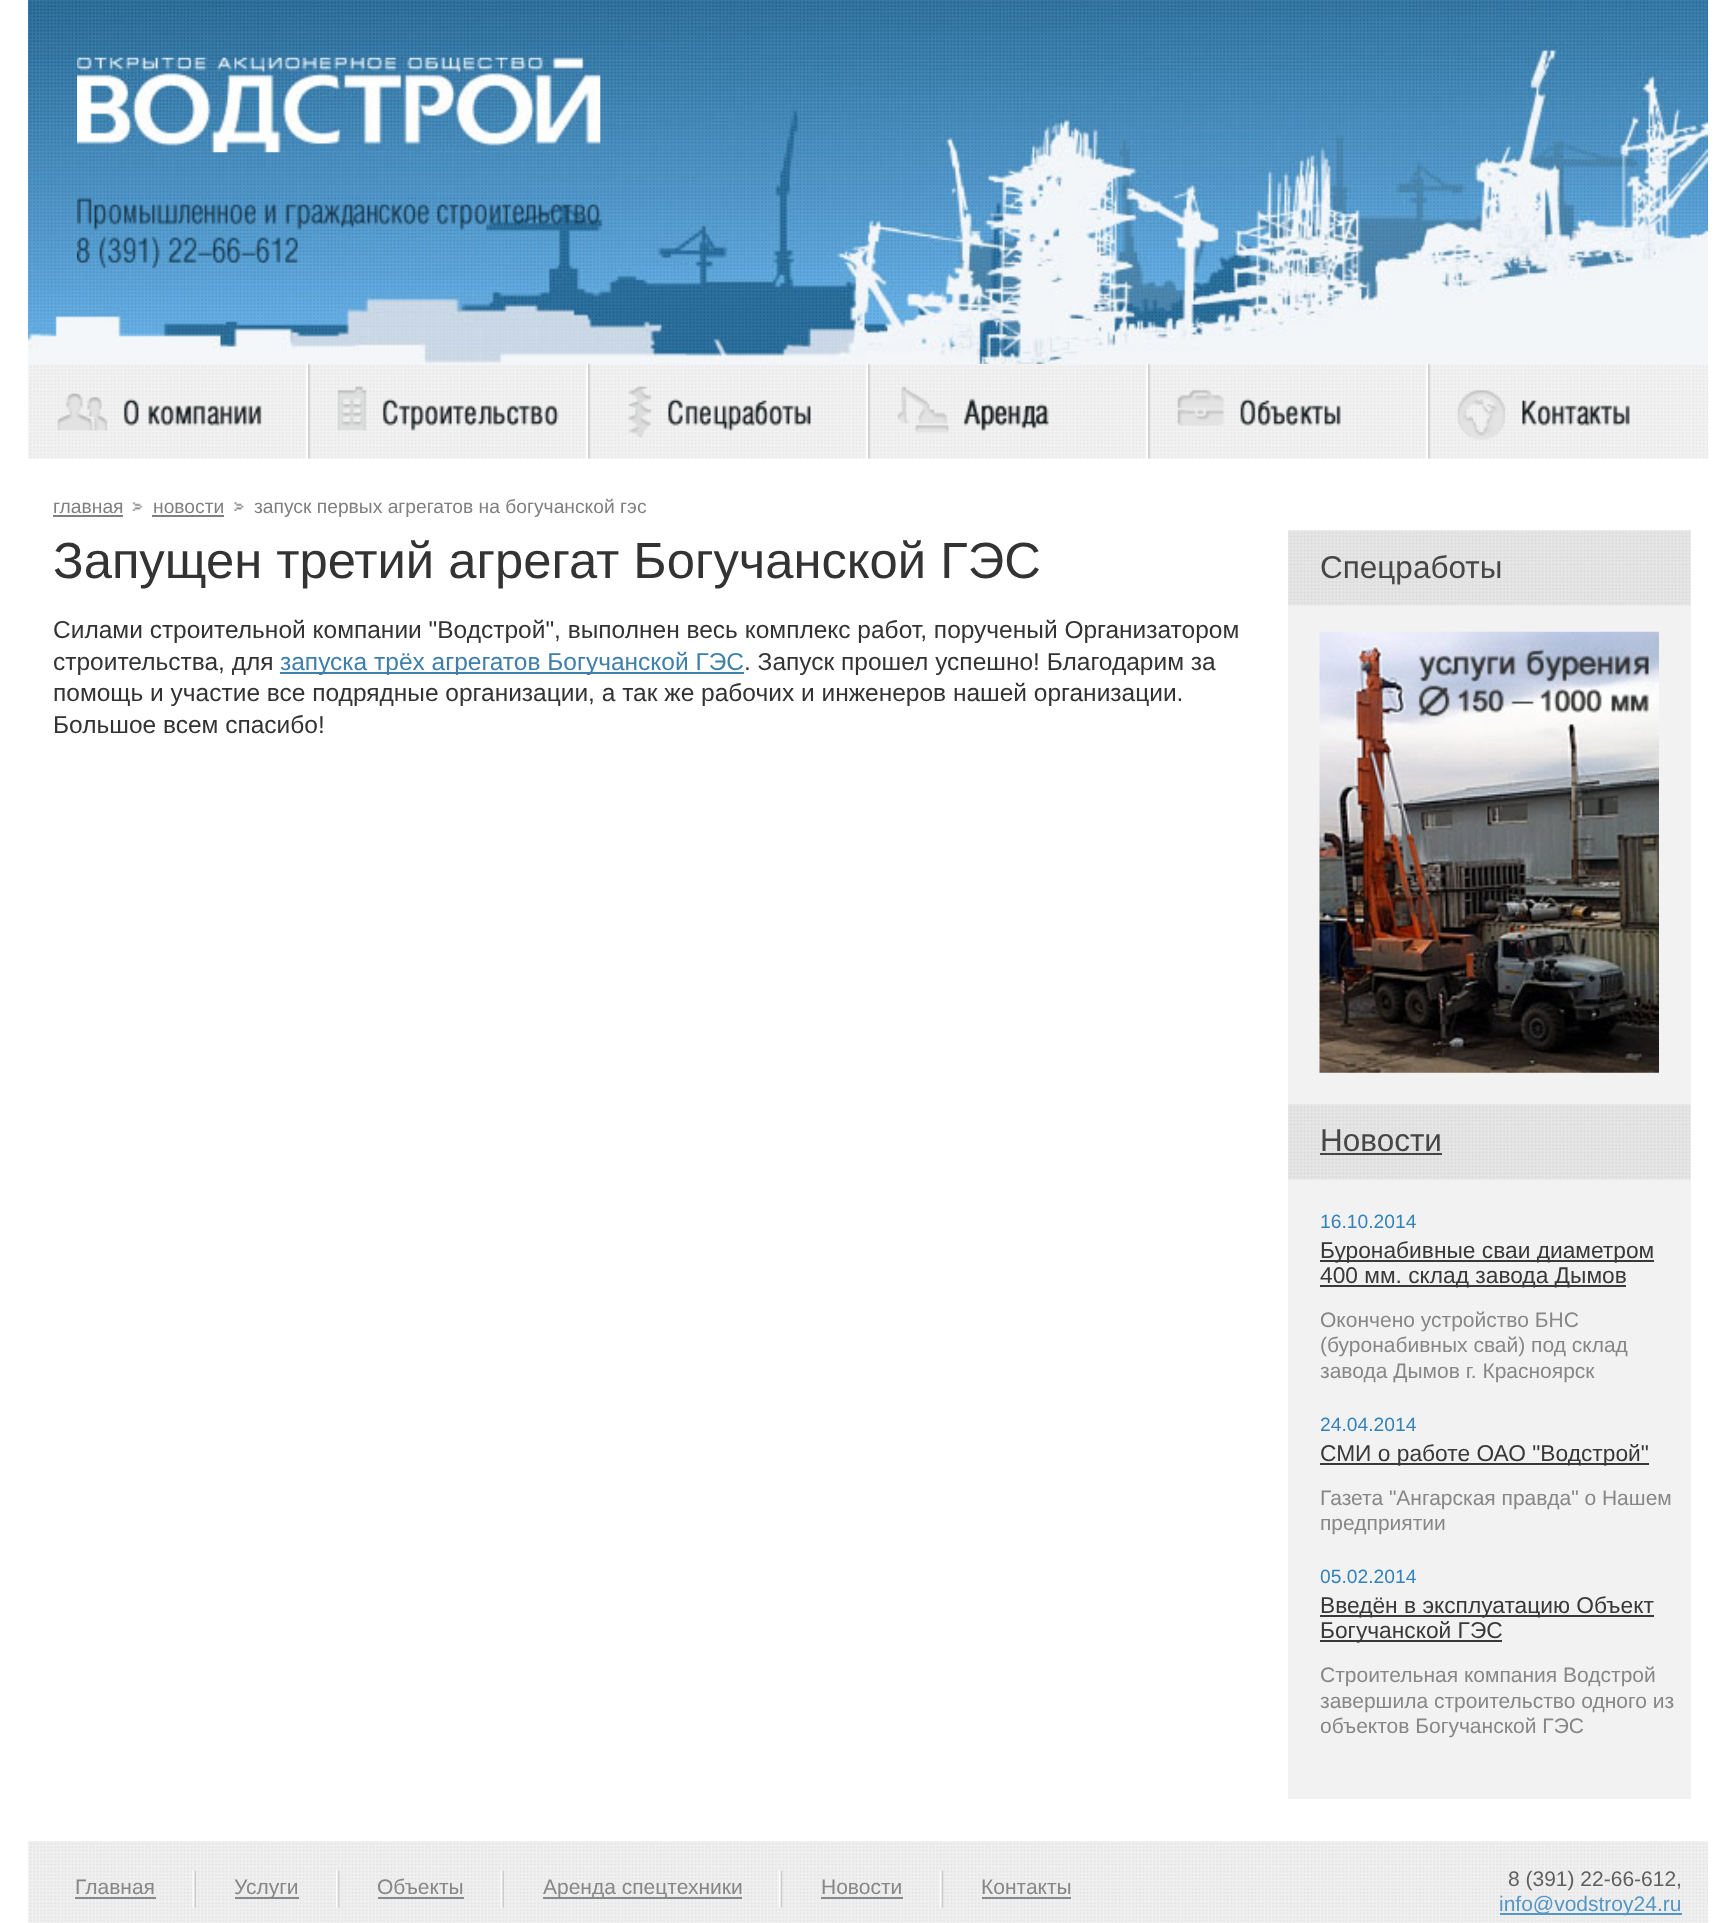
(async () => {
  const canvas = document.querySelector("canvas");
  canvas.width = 1736;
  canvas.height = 1923;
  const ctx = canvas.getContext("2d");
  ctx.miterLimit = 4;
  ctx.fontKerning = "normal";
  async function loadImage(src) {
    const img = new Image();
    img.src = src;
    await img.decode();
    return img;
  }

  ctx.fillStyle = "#ffffff";
  ctx.fillRect(0, 0, 1736, 1923);
  ctx.drawImage(await loadImage("img/1.png"), 28, 0, 1680, 364);
  ctx.drawImage(await loadImage("img/2.png"), 77, 57, 524, 96);
  ctx.drawImage(await loadImage("img/3.png"), 77, 197, 524, 71);
  ctx.drawImage(await loadImage("img/4.png"), 28, 364, 279, 95);
  ctx.drawImage(await loadImage("img/5.png"), 308, 364, 279, 95);
  ctx.drawImage(await loadImage("img/6.png"), 588, 364, 279, 95);
  ctx.drawImage(await loadImage("img/7.png"), 868, 364, 279, 95);
  ctx.drawImage(await loadImage("img/8.png"), 1148, 364, 279, 95);
  ctx.drawImage(await loadImage("img/9.png"), 1428, 364, 280, 95);
  ctx.drawImage(await loadImage("img/10.png"), 132, 502, 11, 9);
  ctx.fillStyle = "#7f7f7f";
  ctx.fillRect(53, 515, 70, 2);
  ctx.drawImage(await loadImage("img/11.png"), 234, 502, 10, 9);
  for (const [x, y, w, h, color] of [
    [152, 515, 72, 2, "#7f7f7f"],
    [1288, 530, 403, 1269, "#f2f2f2"],
    [280, 672, 464, 2, "#3f7fac"],
  ]) {
    ctx.fillStyle = color;
    ctx.fillRect(x, y, w, h);
  }
  ctx.drawImage(await loadImage("img/12.png"), 1288, 530, 403, 76);
  ctx.drawImage(await loadImage("img/13.png"), 1319, 631, 340, 442);
  ctx.drawImage(await loadImage("img/14.png"), 1288, 1104, 403, 76);
  for (const [x, y, w, h, color] of [
    [1320, 1153, 122, 2, "#464646"],
    [1320, 1260, 334, 2, "#393939"],
    [1320, 1285, 306, 2, "#393939"],
    [1320, 1463, 329, 2, "#393939"],
    [1320, 1615, 334, 2, "#393939"],
    [1320, 1640, 182, 2, "#393939"],
    [28, 1841, 1680, 82, "#f1f1f1"],
  ]) {
    ctx.fillStyle = color;
    ctx.fillRect(x, y, w, h);
  }
  ctx.drawImage(await loadImage("img/15.png"), 29, 1842, 1679, 80);
  ctx.fillStyle = "#868a8c";
  ctx.fillRect(75, 1897, 81, 2);
  ctx.drawImage(await loadImage("img/16.png"), 192, 1870, 4, 38);
  ctx.fillRect(235, 1897, 64, 2);
  ctx.drawImage(await loadImage("img/17.png"), 336, 1870, 4, 38);
  ctx.fillRect(378, 1897, 86, 2);
  ctx.drawImage(await loadImage("img/16.png"), 500, 1870, 4, 38);
  ctx.fillRect(543, 1897, 199, 2);
  ctx.drawImage(await loadImage("img/18.png"), 778, 1870, 5, 38);
  ctx.fillRect(821, 1897, 82, 2);
  ctx.drawImage(await loadImage("img/19.png"), 939, 1870, 5, 38);
  ctx.fillRect(982, 1897, 89, 2);
  ctx.fillStyle = "#5497c6";
  ctx.fillRect(1500, 1913, 182, 2);
  ctx.font = "19.25px Liberation Sans";
  ctx.fillStyle = "#7f7f7f";
  for (const [text, x, y] of [
    ["главная", 53, 513],
    ["новости", 153, 513],
    ["запуск первых агрегатов на богучанской гэс", 254, 513],
  ]) {
    ctx.fillText(text, x, y);
  }
  ctx.font = "50.75px Liberation Sans";
  ctx.fillStyle = "#333333";
  ctx.fillText("Запущен третий агрегат Богучанской ГЭС", 53, 578);
  ctx.font = "24.5px Liberation Sans";
  ctx.fillText("Силами строительной компании \"Водстрой\", выполнен весь комплекс работ, порученый Организатором", 53, 638);
  ctx.fillText("строительства, для", 53, 670);
  ctx.fillStyle = "#3f7fac";
  ctx.fillText("запуска трёх агрегатов Богучанской ГЭС", 280, 670);
  ctx.fillStyle = "#333333";
  for (const [text, x, y] of [
    [". Запуск прошел успешно! Благодарим за", 744, 670],
    ["помощь и участие все подрядные организации, а так же рабочих и инженеров нашей организации.", 53, 701],
    ["Большое всем спасибо!", 53, 733],
  ]) {
    ctx.fillText(text, x, y);
  }
  ctx.font = "31.5px Liberation Sans";
  ctx.fillStyle = "#464646";
  ctx.fillText("Спецработы", 1320, 578);
  ctx.fillText("Новости", 1320, 1151);
  ctx.font = "19.25px Liberation Sans";
  ctx.fillStyle = "#3482ba";
  ctx.fillText("16.10.2014", 1320, 1228);
  ctx.font = "22.75px Liberation Sans";
  ctx.fillStyle = "#393939";
  ctx.fillText("Буронабивные сваи диаметром", 1320, 1258);
  ctx.fillText("400 мм. склад завода Дымов", 1320, 1283);
  ctx.font = "21px Liberation Sans";
  ctx.fillStyle = "#878787";
  for (const [text, x, y] of [
    ["Окончено устройство БНС", 1320, 1327],
    ["(буронабивных свай) под склад", 1320, 1352],
    ["завода Дымов г. Красноярск", 1320, 1378],
  ]) {
    ctx.fillText(text, x, y);
  }
  ctx.font = "19.25px Liberation Sans";
  ctx.fillStyle = "#3482ba";
  ctx.fillText("24.04.2014", 1320, 1431);
  ctx.font = "22.75px Liberation Sans";
  ctx.fillStyle = "#393939";
  ctx.fillText("СМИ о работе ОАО \"Водстрой\"", 1320, 1461);
  ctx.font = "21px Liberation Sans";
  ctx.fillStyle = "#878787";
  ctx.fillText("Газета \"Ангарская правда\" о Нашем", 1320, 1505);
  ctx.fillText("предприятии", 1320, 1530);
  ctx.font = "19.25px Liberation Sans";
  ctx.fillStyle = "#3482ba";
  ctx.fillText("05.02.2014", 1320, 1583);
  ctx.font = "22.75px Liberation Sans";
  ctx.fillStyle = "#393939";
  ctx.fillText("Введён в эксплуатацию Объект", 1320, 1613);
  ctx.fillText("Богучанской ГЭС", 1320, 1638);
  ctx.font = "21px Liberation Sans";
  ctx.fillStyle = "#878787";
  for (const [text, x, y] of [
    ["Строительная компания Водстрой", 1320, 1682],
    ["завершила строительство одного из", 1320, 1708],
    ["объектов Богучанской ГЭС", 1320, 1733],
    ["Главная", 75, 1894],
    ["Услуги", 234, 1894],
    ["Объекты", 377, 1894],
    ["Аренда спецтехники", 543, 1894],
    ["Новости", 821, 1894],
    ["Контакты", 981, 1894],
  ]) {
    ctx.fillText(text, x, y);
  }
  ctx.fillStyle = "#5f5f5f";
  ctx.fillText("8 (391) 22-66-612,", 1508, 1886);
  ctx.fillStyle = "#5497c6";
  ctx.fillText("info@vodstroy24.ru", 1499, 1911);
})();
